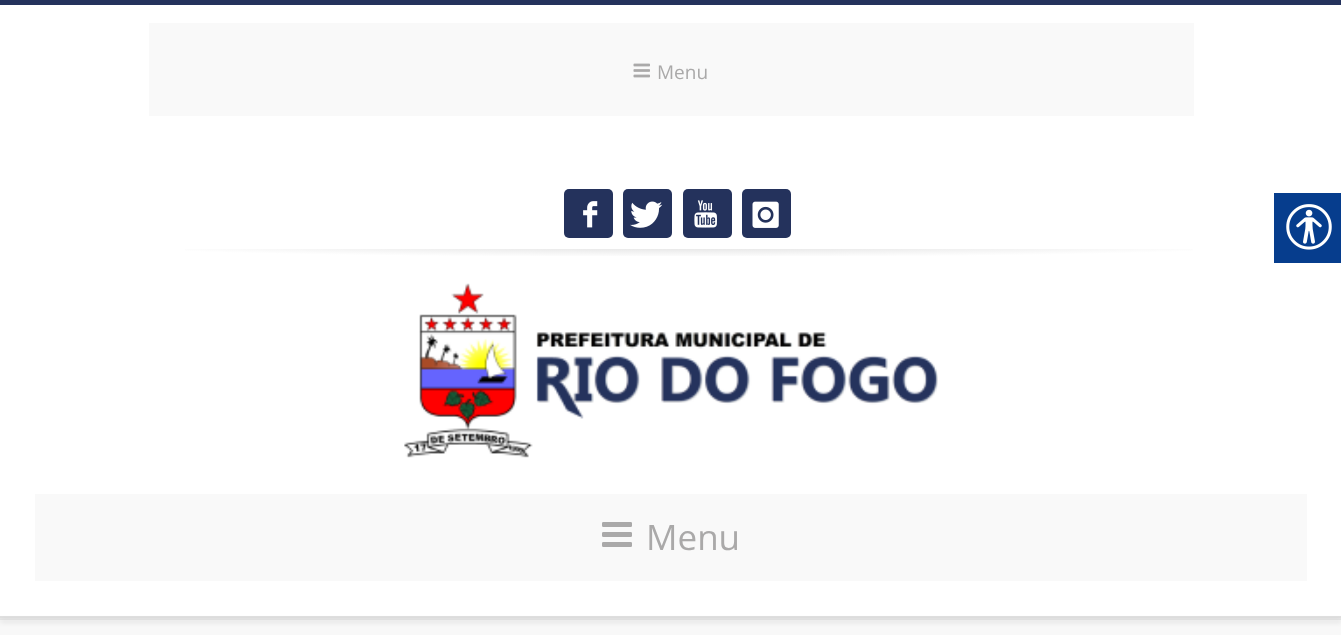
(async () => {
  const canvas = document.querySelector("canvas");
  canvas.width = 1341;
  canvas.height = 635;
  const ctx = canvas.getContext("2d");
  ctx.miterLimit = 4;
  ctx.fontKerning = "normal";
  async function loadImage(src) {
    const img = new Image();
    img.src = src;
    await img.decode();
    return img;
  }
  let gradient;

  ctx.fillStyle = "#ffffff";
  ctx.fillRect(0, 0, 1341, 635);
  ctx.fillStyle = "#24325c";
  ctx.fillRect(0, 0, 1341, 5);
  ctx.fillStyle = "#f9f9f9";
  ctx.fillRect(149, 23, 1045, 93);
  ctx.drawImage(await loadImage("img/1.png"), 633, 63, 17, 15);
  ctx.fillStyle = "#24325c";
  ctx.beginPath();
  ctx.roundRect(564, 189, 49, 49, 5);
  ctx.fill();
  ctx.drawImage(await loadImage("img/2.png"), 583, 201, 15, 27);
  ctx.beginPath();
  ctx.roundRect(623, 189, 49, 49, 5);
  ctx.fill();
  ctx.drawImage(await loadImage("img/3.png"), 630, 201, 33, 27);
  ctx.beginPath();
  ctx.roundRect(683, 189, 49, 49, 5);
  ctx.fill();
  ctx.drawImage(await loadImage("img/4.png"), 694, 200, 23, 28);
  ctx.beginPath();
  ctx.roundRect(742, 189, 49, 49, 5);
  ctx.fill();
  ctx.drawImage(await loadImage("img/5.png"), 752, 201, 27, 27);
  gradient = ctx.createRadialGradient(689, 10482.14, 0, 689, 10482.14, 949);
  gradient.addColorStop(0, "#d9d9d9");
  gradient.addColorStop(0.65, "#ffffff");
  ctx.fillStyle = gradient;
  ctx.beginPath();
  ctx.rect(185, 249, 1008, 7);
  ctx.save();
  ctx.clip();
  ctx.scale(1, 22 / 949);
  ctx.fillRect(0, 0, 1341, 27392);
  ctx.restore();
  ctx.fillStyle = "#e1e1e1";
  ctx.fillRect(0, 616, 1341, 2);
  ctx.drawImage(await loadImage("img/6.png"), 404, 283, 534, 175);
  ctx.fillStyle = "#f9f9f9";
  ctx.fillRect(35, 494, 1272, 87);
  ctx.drawImage(await loadImage("img/7.png"), 602, 522, 30, 25);
  ctx.fillStyle = "#f8f8f8";
  ctx.fillRect(0, 620, 1341, 15);
  ctx.fillStyle = "#f5f5f5";
  ctx.fillRect(0, 618, 1341, 2);
  ctx.fillStyle = "rgba(0, 0, 0, 0.15)";
  ctx.filter = "blur(2.5px)";
  ctx.beginPath();
  ctx.rect(0, 620, 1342, 2);
  ctx.fill();
  ctx.filter = "none";
  ctx.fillStyle = "rgba(0, 0, 0, 0.05)";
  ctx.fillRect(0, 618, 1341, 2);
  ctx.fillStyle = "#063d8d";
  ctx.fillRect(1274, 193, 67, 70);
  ctx.drawImage(await loadImage("img/8.png"), 1286, 204, 46, 46);
  ctx.font = "19px Open Sans";
  ctx.fillStyle = "#aaa9a9";
  ctx.fillText("Menu", 657, 79);
  ctx.font = "35px Open Sans";
  ctx.fillText("Menu", 646, 550);
})();
